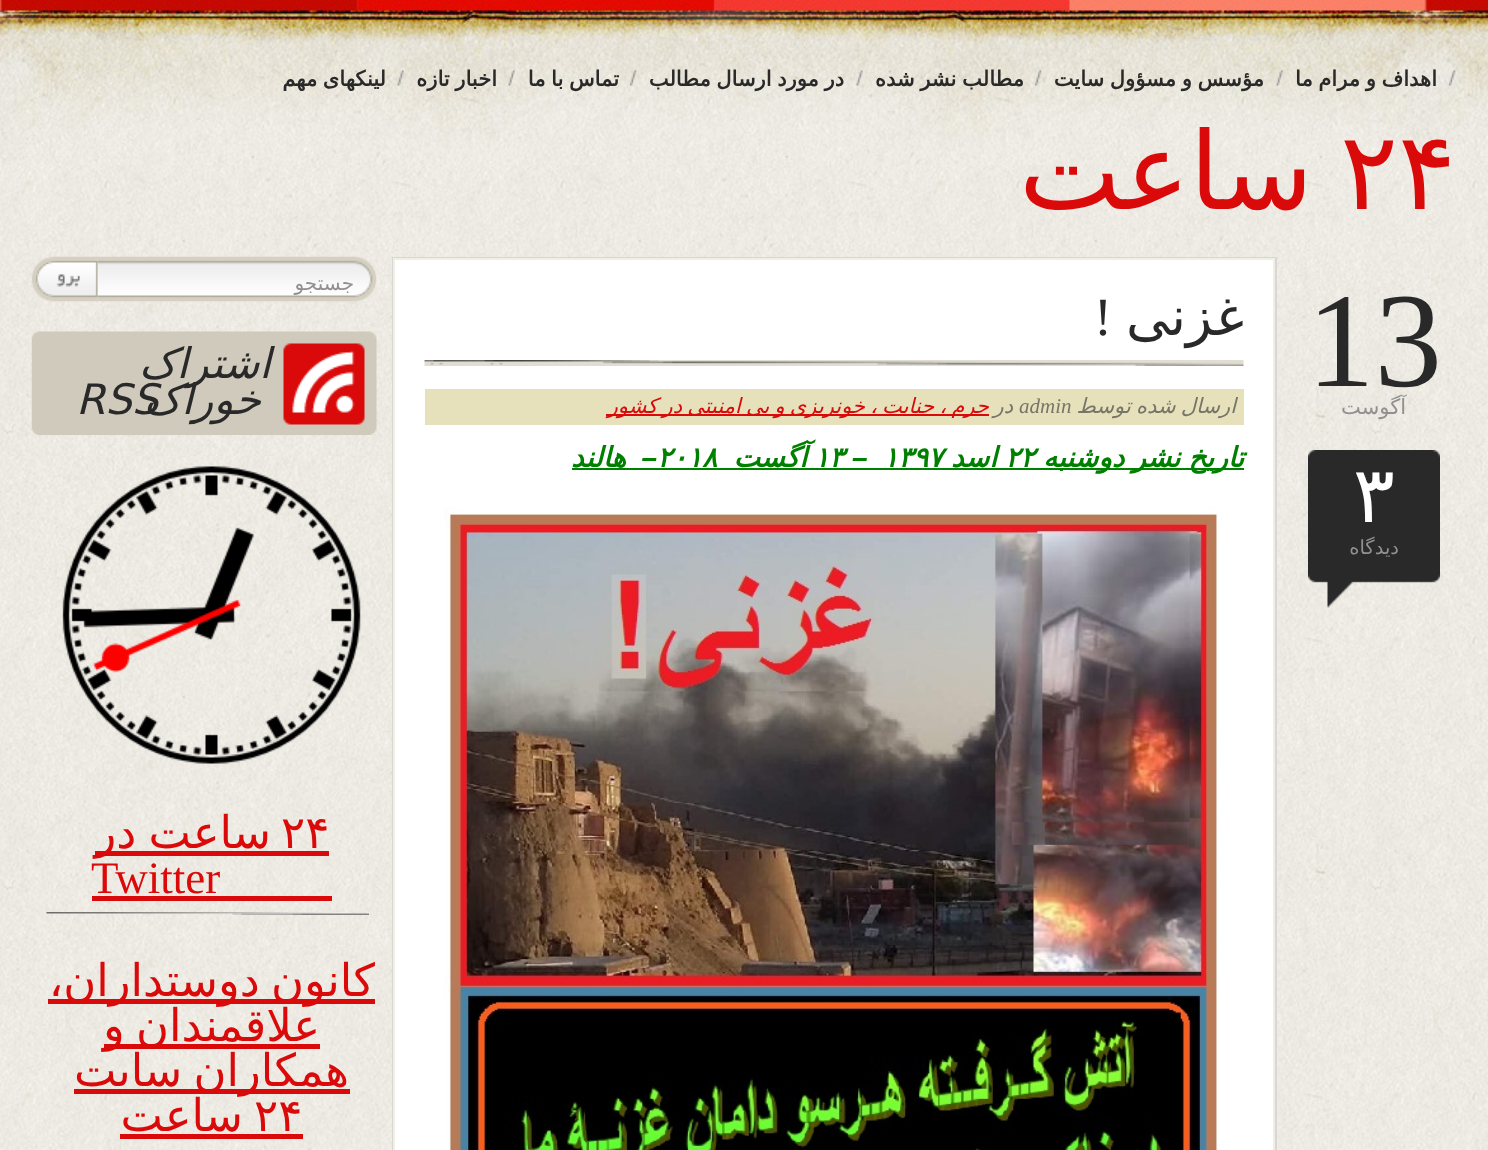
(async () => {
  const canvas = document.querySelector("canvas");
  canvas.width = 1488;
  canvas.height = 1150;
  const ctx = canvas.getContext("2d");
  ctx.miterLimit = 4;
  ctx.fontKerning = "normal";
  async function loadImage(src) {
    const img = new Image();
    img.src = src;
    await img.decode();
    return img;
  }

  ctx.fillStyle = "#ffffff";
  ctx.fillRect(0, 0, 1488, 1150);
  ctx.drawImage(await loadImage("img/1.png"), 0, 165, 1488, 985);
  ctx.drawImage(await loadImage("img/2.png"), 0, 0, 1488, 165);
  ctx.drawImage(await loadImage("img/3.png"), 1448, 70, 8, 16);
  ctx.drawImage(await loadImage("img/4.png"), 1276, 70, 7, 16);
  ctx.drawImage(await loadImage("img/5.png"), 1034, 70, 8, 16);
  ctx.drawImage(await loadImage("img/6.png"), 856, 70, 7, 16);
  ctx.drawImage(await loadImage("img/7.png"), 629, 70, 8, 16);
  ctx.drawImage(await loadImage("img/8.png"), 508, 70, 7, 16);
  ctx.drawImage(await loadImage("img/9.png"), 397, 70, 7, 16);
  ctx.drawImage(await loadImage("img/10.png"), 1308, 450, 132, 158);
  ctx.strokeStyle = "#d8d7d4";
  ctx.lineWidth = 2;
  ctx.strokeRect(393, 258, 883, 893);
  ctx.beginPath();
  ctx.rect(394, 259, 880, 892);
  ctx.fill();
  ctx.strokeStyle = "#f0efe4";
  ctx.stroke();
  ctx.drawImage(await loadImage("img/11.png"), 424, 360, 820, 6);
  for (const [x, y, w, h, color] of [
    [425, 389, 819, 36, "#e6e0bb"],
    [606, 414, 383, 2, "#da0a0a"],
    [951, 468, 293, 2, "#008000"],
    [572, 468, 379, 2, "#008000"],
  ]) {
    ctx.fillStyle = color;
    ctx.fillRect(x, y, w, h);
  }
  ctx.drawImage(await loadImage("img/12.png"), 444, 507, 774, 643);
  ctx.drawImage(await loadImage("img/13.png"), 97, 256, 280, 46);
  ctx.drawImage(await loadImage("img/14.png"), 31, 256, 67, 46);
  ctx.drawImage(await loadImage("img/15.png"), 31, 331, 346, 104);
  ctx.drawImage(await loadImage("img/16.png"), 62, 466, 299, 298);
  ctx.drawImage(await loadImage("img/17.png"), 46, 912, 323, 3);
  for (const [x, y, w, h, color] of [
    [95, 851, 234, 5, "#da0a0a"],
    [92, 896, 240, 5, "#da0a0a"],
    [48, 999, 327, 5, "#da0a0a"],
    [104, 1044, 216, 5, "#da0a0a"],
    [74, 1089, 276, 5, "#da0a0a"],
    [120, 1134, 183, 5, "#da0a0a"],
  ]) {
    ctx.fillStyle = color;
    ctx.fillRect(x, y, w, h);
  }
  ctx.wordSpacing = "-1px";
  ctx.direction = "rtl";
  ctx.font = "bold 21px DejaVu Sans";
  ctx.fillStyle = "#292929";
  for (const [text, x, y] of [
    ["اهداف و مرام ما", 1437, 86],
    ["مؤسس و مسؤول سایت", 1264, 86],
    ["مطالب نشر شده", 1024, 86],
    ["در مورد ارسال مطالب", 844, 86],
    ["تماس با ما", 619, 86],
    ["اخبار تازه", 497, 86],
    ["لینکهای مهم", 386, 86],
  ]) {
    ctx.fillText(text, x, y);
  }
  ctx.wordSpacing = "0px";
  ctx.direction = "ltr";
  ctx.font = "108px DejaVu Sans";
  ctx.fillStyle = "#da0a0a";
  ctx.fillText("۲۴", 1340, 209);
  ctx.direction = "rtl";
  ctx.fillText("ساعت", 1313, 209);
  ctx.direction = "ltr";
  ctx.font = "135px Liberation Serif";
  ctx.fillStyle = "#292929";
  ctx.fillText("13", 1307, 386);
  ctx.direction = "rtl";
  ctx.font = "21px DejaVu Sans";
  ctx.fillStyle = "#909090";
  ctx.fillText("آگوست", 1406, 414);
  ctx.direction = "ltr";
  ctx.font = "78px DejaVu Sans";
  ctx.fillStyle = "#ffffff";
  ctx.fillText("۳", 1353, 522);
  ctx.direction = "rtl";
  ctx.font = "19.5px DejaVu Sans";
  ctx.fillStyle = "#909090";
  ctx.fillText("دیدگاه", 1399, 554);
  ctx.font = "54px DejaVu Sans";
  ctx.fillStyle = "#292929";
  ctx.fillText("غزنی", 1244, 335);
  ctx.font = "54px Liberation Serif";
  ctx.fillText("!", 1112, 335);
  ctx.wordSpacing = "-1.5px";
  ctx.font = "italic 21px DejaVu Sans";
  ctx.fillStyle = "#767569";
  ctx.fillText("ارسال شده توسط", 1236, 413);
  ctx.wordSpacing = "0px";
  ctx.direction = "ltr";
  ctx.font = "italic 21px Liberation Serif";
  ctx.fillText("admin", 1019, 413);
  ctx.direction = "rtl";
  ctx.font = "italic 21px DejaVu Sans";
  ctx.fillText("در", 1013, 413);
  ctx.wordSpacing = "-1.5px";
  ctx.fillStyle = "#da0a0a";
  ctx.fillText("جرم ، جنایت ، خونریزی و بی امنیتی در کشور", 989, 413);
  ctx.wordSpacing = "-1px";
  ctx.font = "italic bold 28px DejaVu Sans";
  ctx.fillStyle = "#008000";
  ctx.fillText("تاریخ نشر دوشنبه", 1244, 467);
  ctx.wordSpacing = "0px";
  ctx.direction = "ltr";
  ctx.fillText("۲۲", 1005, 467);
  ctx.direction = "rtl";
  ctx.fillText("اسد", 997, 467);
  ctx.direction = "ltr";
  ctx.fillText("۱۳۹۷", 883, 467);
  ctx.font = "italic bold 28px Liberation Sans";
  ctx.fillText("–", 852, 467);
  ctx.font = "italic bold 28px DejaVu Sans";
  ctx.fillText("۱۳", 814, 467);
  ctx.direction = "rtl";
  ctx.fillText("آگست", 807, 467);
  ctx.direction = "ltr";
  ctx.fillText("۲۰۱۸", 657, 467);
  ctx.direction = "rtl";
  ctx.font = "italic bold 28px Liberation Sans";
  ctx.fillText("–", 657, 467);
  ctx.font = "italic bold 28px DejaVu Sans";
  ctx.fillText("هالند", 626, 467);
  ctx.font = "20px DejaVu Sans";
  ctx.fillStyle = "#909090";
  ctx.fillText("جستجو", 354, 290);
  ctx.font = "italic 42px DejaVu Sans";
  ctx.fillStyle = "#292929";
  ctx.fillText("اشتراک", 271, 378);
  ctx.direction = "ltr";
  ctx.fillText("RSS", 76, 414);
  ctx.direction = "rtl";
  ctx.fillText("خوراک", 261, 414);
  ctx.direction = "ltr";
  ctx.font = "45px DejaVu Sans";
  ctx.fillStyle = "#da0a0a";
  ctx.fillText("۲۴", 281, 848);
  ctx.wordSpacing = "-2px";
  ctx.direction = "rtl";
  ctx.fillText("ساعت در", 271, 848);
  ctx.wordSpacing = "0px";
  ctx.direction = "ltr";
  ctx.font = "45px Liberation Serif";
  ctx.fillText("Twitter", 91, 893);
  ctx.wordSpacing = "-3px";
  ctx.direction = "rtl";
  ctx.font = "45px DejaVu Sans";
  for (const [text, x, y] of [
    ["کانون دوستداران،", 375, 996],
    ["علاقمندان و", 320, 1041],
    ["همکاران سایت", 349, 1086],
  ]) {
    ctx.fillText(text, x, y);
  }
  ctx.wordSpacing = "0px";
  ctx.direction = "ltr";
  ctx.fillText("۲۴", 254, 1131);
  ctx.direction = "rtl";
  ctx.fillText("ساعت", 243, 1131);
})();
